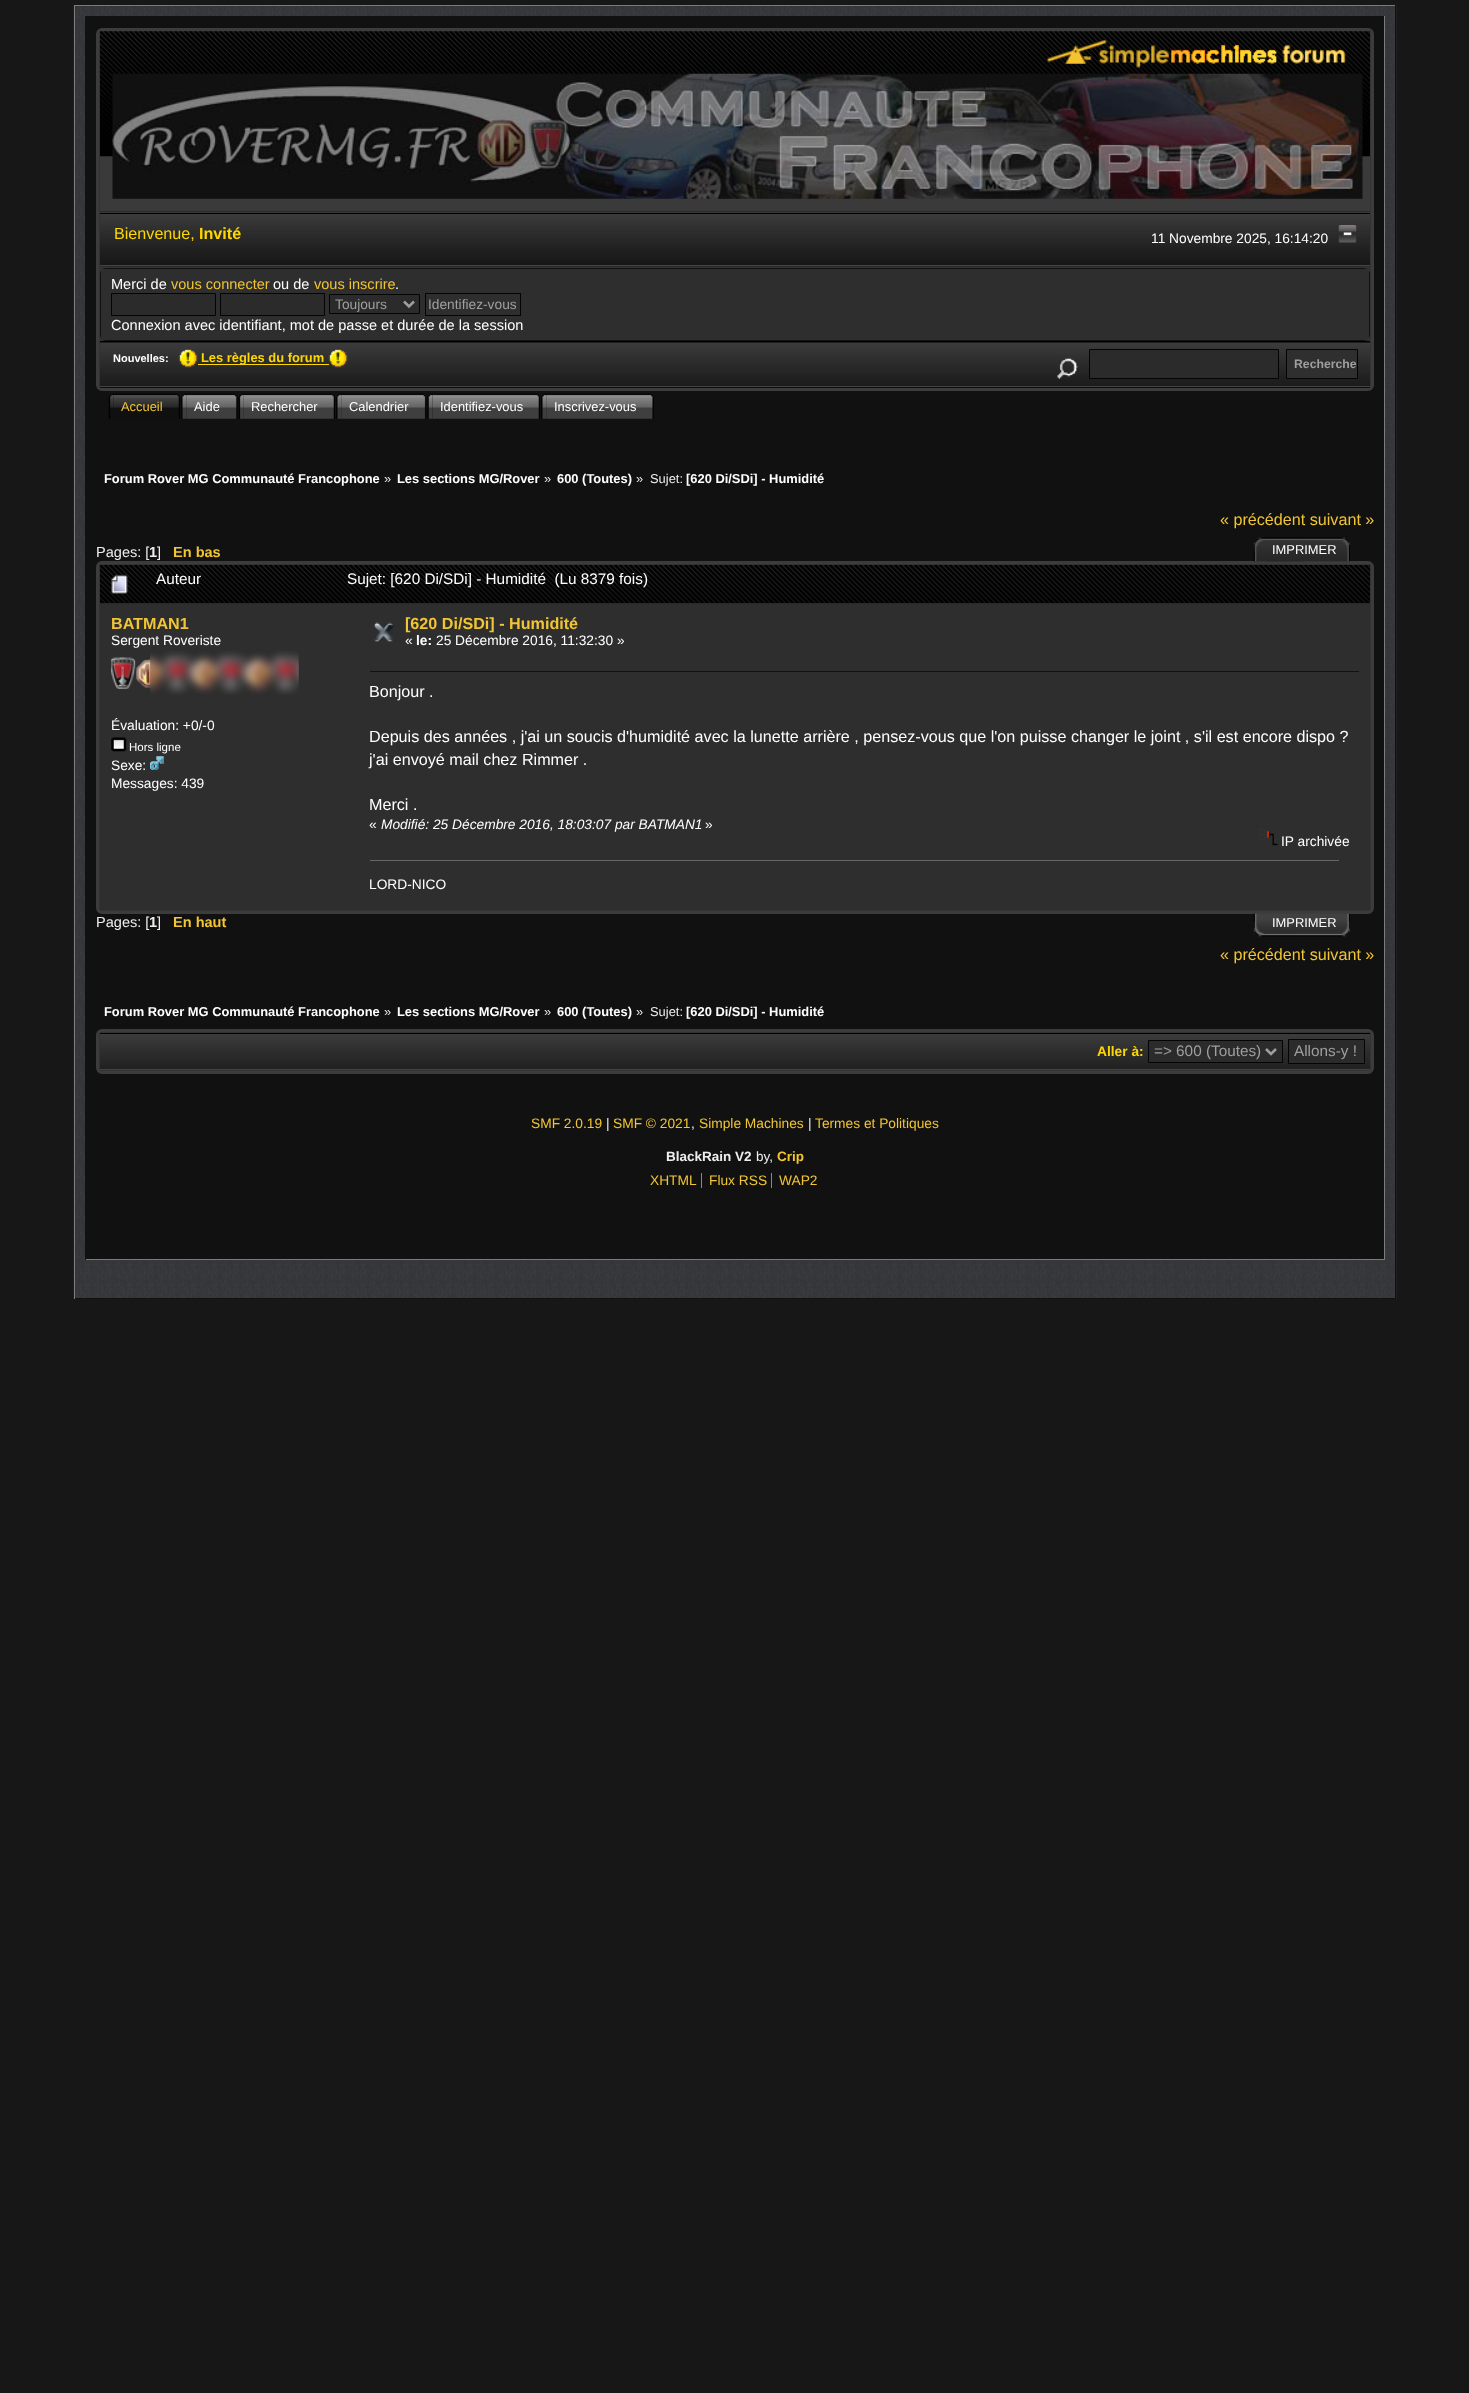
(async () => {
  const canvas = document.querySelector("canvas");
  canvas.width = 1469;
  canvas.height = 2393;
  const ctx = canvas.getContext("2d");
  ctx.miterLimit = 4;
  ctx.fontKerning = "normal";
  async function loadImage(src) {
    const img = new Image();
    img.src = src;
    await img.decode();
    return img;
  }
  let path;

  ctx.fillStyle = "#171717";
  ctx.fillRect(0, 0, 1469, 2393);
  ctx.drawImage(await loadImage("img/1.png"), 73, 5, 1324, 1294);
  for (const [x, y, w, h, color] of [
    [74, 5, 1322, 1, "#7c7c7c"],
    [1395, 5, 1, 1294, "#111111"],
    [74, 1298, 1322, 1, "#111111"],
    [74, 5, 1, 1294, "#7c7c7c"],
    [86, 16, 1298, 1243, "#111111"],
    [1384, 16, 1, 1244, "#7c7c7c"],
    [85, 1259, 1300, 1, "#7c7c7c"],
    [85, 16, 1, 1244, "#111111"],
  ]) {
    ctx.fillStyle = color;
    ctx.fillRect(x, y, w, h);
  }
  ctx.fillStyle = "#333333";
  ctx.beginPath();
  ctx.roundRect(97.5, 29.5, 1275, 360, 4.5);
  ctx.fill();
  ctx.strokeStyle = "#3c3c3c";
  ctx.lineWidth = 3;
  ctx.stroke();
  ctx.fillStyle = "#3a3a3a";
  ctx.fillRect(100, 31, 1270, 182);
  ctx.drawImage(await loadImage("img/2.png"), 100, 31, 1270, 126);
  ctx.fillStyle = "#2a2a2a";
  ctx.fillRect(100, 211, 1270, 1);
  ctx.drawImage(await loadImage("img/3.png"), 1047, 39, 299, 29);
  ctx.drawImage(await loadImage("img/4.png"), 112, 73, 1251, 126);
  ctx.drawImage(await loadImage("img/5.png"), 100, 214, 1270, 53);
  ctx.fillStyle = "#000000";
  ctx.fillRect(100, 213, 1270, 1);
  ctx.fillStyle = "#434343";
  ctx.fillRect(100, 265, 1270, 1);
  ctx.drawImage(await loadImage("img/6.png"), 1338, 225, 19, 18);
  ctx.fillStyle = "#111111";
  ctx.beginPath();
  ctx.roundRect(100, 268, 1270, 73, 6);
  ctx.fill();
  ctx.fillStyle = "#2e2e2e";
  ctx.fillRect(101, 269, 1268, 71);
  ctx.fillStyle = "#2b2b2b";
  ctx.beginPath();
  ctx.rect(111.5, 293.5, 104, 22);
  ctx.fill();
  ctx.strokeStyle = "#040404";
  ctx.lineWidth = 1;
  ctx.stroke();
  ctx.beginPath();
  ctx.rect(220.5, 293.5, 104, 22);
  ctx.fill();
  ctx.stroke();
  ctx.beginPath();
  ctx.rect(329.5, 294.5, 90, 19);
  ctx.fill();
  ctx.stroke();
  path = new Path2D("M404 301.5L409 306.5L414 301.5");
  ctx.strokeStyle = "#9f9f9f";
  ctx.lineWidth = 2.5;
  ctx.stroke(path);
  ctx.strokeStyle = "#040404";
  ctx.lineWidth = 1;
  ctx.strokeRect(425.5, 293.5, 95, 22);
  ctx.fillStyle = "#000000";
  ctx.fillRect(100, 341, 1270, 47);
  ctx.drawImage(await loadImage("img/7.png"), 100, 342, 1270, 46);
  ctx.fillStyle = "#434343";
  ctx.fillRect(100, 386, 1270, 1);
  ctx.drawImage(await loadImage("img/8.png"), 178, 349, 20, 19);
  ctx.fillStyle = "#ffd700";
  ctx.fillRect(198, 364, 131, 1);
  ctx.drawImage(await loadImage("img/9.png"), 328, 349, 20, 19);
  ctx.drawImage(await loadImage("img/10.png"), 1057, 358, 21, 21);
  ctx.fillStyle = "#2b2b2b";
  ctx.beginPath();
  ctx.rect(1089.5, 349.5, 189, 29);
  ctx.fill();
  ctx.stroke();
  ctx.fillStyle = "#2f2f2f";
  ctx.beginPath();
  ctx.rect(1286.5, 349.5, 71, 29);
  ctx.fill();
  ctx.stroke();
  ctx.drawImage(await loadImage("img/11.png"), 108, 393, 6, 26);
  ctx.drawImage(await loadImage("img/12.png"), 114, 393, 66, 26);
  ctx.drawImage(await loadImage("img/13.png"), 181, 393, 6, 26);
  ctx.drawImage(await loadImage("img/14.png"), 186, 393, 52, 26);
  ctx.drawImage(await loadImage("img/15.png"), 238, 393, 6, 26);
  ctx.drawImage(await loadImage("img/16.png"), 243, 393, 92, 26);
  ctx.drawImage(await loadImage("img/13.png"), 336, 393, 6, 26);
  ctx.drawImage(await loadImage("img/17.png"), 341, 393, 86, 26);
  ctx.drawImage(await loadImage("img/18.png"), 427, 393, 6, 26);
  ctx.drawImage(await loadImage("img/19.png"), 432, 393, 108, 26);
  ctx.drawImage(await loadImage("img/13.png"), 541, 393, 6, 26);
  ctx.drawImage(await loadImage("img/20.png"), 546, 393, 108, 26);
  ctx.fillStyle = "#333333";
  ctx.beginPath();
  ctx.roundRect(97.5, 562.5, 1275, 350, 4.5);
  ctx.fill();
  ctx.strokeStyle = "#3c3c3c";
  ctx.lineWidth = 3;
  ctx.stroke();
  ctx.drawImage(await loadImage("img/21.png"), 1253, 537, 51, 25);
  ctx.drawImage(await loadImage("img/22.png"), 1267, 537, 83, 25);
  ctx.drawImage(await loadImage("img/23.png"), 100, 565, 1270, 38);
  ctx.fillStyle = "#2a2a2a";
  ctx.fillRect(100, 603, 1270, 1);
  ctx.drawImage(await loadImage("img/24.png"), 111, 574, 17, 20);
  ctx.fillStyle = "#2e2e2e";
  ctx.fillRect(100, 604, 1270, 306);
  ctx.drawImage(await loadImage("img/25.png"), 111, 650, 188, 45);
  ctx.drawImage(await loadImage("img/26.png"), 111, 737, 16, 15);
  ctx.drawImage(await loadImage("img/27.png"), 150, 756, 14, 14);
  ctx.drawImage(await loadImage("img/28.png"), 373, 622, 21, 20);
  ctx.fillStyle = "#121212";
  ctx.fillRect(370, 671, 989, 1);
  ctx.drawImage(await loadImage("img/29.png"), 1259, 828, 19, 18);
  ctx.fillStyle = "#666666";
  ctx.fillRect(370, 860, 969, 1);
  ctx.drawImage(await loadImage("img/30.png"), 1253, 913, 51, 24);
  ctx.drawImage(await loadImage("img/31.png"), 1303, 913, 47, 24);
  ctx.fillStyle = "#333333";
  ctx.beginPath();
  ctx.roundRect(97.5, 1030.5, 1275, 42, 4.5);
  ctx.fill();
  ctx.stroke();
  ctx.drawImage(await loadImage("img/32.png"), 100, 1034, 1270, 35);
  ctx.fillStyle = "#000000";
  ctx.fillRect(100, 1033, 1270, 1);
  ctx.fillStyle = "#434343";
  ctx.fillRect(100, 1069, 1270, 1);
  ctx.fillStyle = "#2b2b2b";
  ctx.beginPath();
  ctx.rect(1148.5, 1040.5, 134, 22);
  ctx.fill();
  ctx.strokeStyle = "#040404";
  ctx.lineWidth = 1;
  ctx.stroke();
  path = new Path2D("M1266 1049L1271 1054L1276 1049");
  ctx.strokeStyle = "#9f9f9f";
  ctx.lineWidth = 2.5;
  ctx.stroke(path);
  ctx.beginPath();
  ctx.rect(1288.5, 1039.5, 76, 24);
  ctx.fill();
  ctx.strokeStyle = "#040404";
  ctx.lineWidth = 1;
  ctx.stroke();
  ctx.fillStyle = "#888888";
  ctx.fillRect(701, 1173, 1, 15);
  ctx.fillRect(771, 1173, 1, 15);
  ctx.font = "16.15px Liberation Sans";
  ctx.fillStyle = "#ffd700";
  ctx.fillText("Bienvenue,", 114, 239);
  ctx.font = "bold 16.15px Liberation Sans";
  ctx.fillText("Invité", 199, 239);
  ctx.font = "13.75px Liberation Sans";
  ctx.fillStyle = "#ffffff";
  ctx.fillText("11 Novembre 2025, 16:14:20", 1151, 243);
  ctx.font = "14.55px Liberation Sans";
  ctx.fillText("Merci de", 111, 289);
  ctx.fillStyle = "#f1c534";
  ctx.fillText("vous connecter", 171, 289);
  ctx.fillStyle = "#ffffff";
  ctx.fillText("ou de", 273, 289);
  ctx.fillStyle = "#f1c534";
  ctx.fillText("vous inscrire", 314, 289);
  ctx.fillStyle = "#ffffff";
  ctx.fillText(".", 395, 289);
  ctx.font = "13.75px Liberation Sans";
  ctx.fillStyle = "#9f9f9f";
  ctx.fillText("Toujours", 335, 309);
  ctx.fillText("Identifiez-vous", 428, 309);
  ctx.font = "14.55px Liberation Sans";
  ctx.fillStyle = "#ffffff";
  ctx.fillText("Connexion avec identifiant, mot de passe et durée de la session", 111, 330);
  ctx.font = "bold 11px Liberation Sans";
  ctx.fillText("Nouvelles:", 113, 362);
  ctx.font = "bold 12.9px Liberation Sans";
  ctx.fillStyle = "#ffd700";
  ctx.fillText("Les règles du forum", 201, 362);
  ctx.font = "bold 12.25px Liberation Sans";
  ctx.fillStyle = "#9f9f9f";
  ctx.fillText("Recherche", 1294, 368);
  ctx.font = "12.9px Liberation Sans";
  ctx.fillStyle = "#f1c534";
  ctx.fillText("Accueil", 121, 411);
  ctx.fillStyle = "#ffffff";
  for (const [text, x, y] of [
    ["Aide", 194, 411],
    ["Rechercher", 251, 411],
    ["Calendrier", 349, 411],
    ["Identifiez-vous", 440, 411],
    ["Inscrivez-vous", 554, 411],
  ]) {
    ctx.fillText(text, x, y);
  }
  ctx.font = "bold 12.9px Liberation Sans";
  ctx.fillText("Forum Rover MG Communauté Francophone", 104, 483);
  ctx.font = "12.9px Liberation Sans";
  ctx.fillStyle = "#eeeeee";
  ctx.fillText("»", 384, 483);
  ctx.font = "bold 12.9px Liberation Sans";
  ctx.fillStyle = "#ffffff";
  ctx.fillText("Les sections MG/Rover", 397, 483);
  ctx.font = "12.9px Liberation Sans";
  ctx.fillStyle = "#eeeeee";
  ctx.fillText("»", 544, 483);
  ctx.font = "bold 12.9px Liberation Sans";
  ctx.fillStyle = "#ffffff";
  ctx.fillText("600 (Toutes)", 557, 483);
  ctx.font = "12.9px Liberation Sans";
  ctx.fillStyle = "#eeeeee";
  ctx.fillText("»", 636, 483);
  ctx.fillText("Sujet:", 650, 483);
  ctx.font = "bold 12.9px Liberation Sans";
  ctx.fillStyle = "#ffffff";
  ctx.fillText("[620 Di/SDi] - Humidité", 686, 483);
  ctx.font = "16.15px Liberation Sans";
  ctx.fillStyle = "#f1c534";
  ctx.fillText("« précédent suivant »", 1220, 525);
  ctx.font = "14.55px Liberation Sans";
  ctx.fillStyle = "#eeeeee";
  ctx.fillText("Pages: [", 96, 557);
  ctx.font = "bold 14.55px Liberation Sans";
  ctx.fillText("1", 149, 557);
  ctx.font = "14.55px Liberation Sans";
  ctx.fillText("]", 157, 557);
  ctx.font = "bold 14.55px Liberation Sans";
  ctx.fillStyle = "#f1c534";
  ctx.fillText("En bas", 173, 557);
  ctx.font = "12.9px Liberation Sans";
  ctx.fillStyle = "#ffffff";
  ctx.fillText("IMPRIMER", 1272, 554);
  ctx.font = "15.3px Liberation Sans";
  ctx.fillText("Auteur", 156, 584);
  ctx.fillText("Sujet: [620 Di/SDi] - Humidité  (Lu 8379 fois)", 347, 584);
  ctx.font = "bold 16.15px Liberation Sans";
  ctx.fillStyle = "#f1c534";
  ctx.fillText("BATMAN1", 111, 629);
  ctx.font = "13.75px Liberation Sans";
  ctx.fillStyle = "#ffffff";
  ctx.fillText("Sergent Roveriste", 111, 645);
  ctx.fillText("Évaluation: +0/-0", 111, 730);
  ctx.font = "11.5px Liberation Sans";
  ctx.fillText("Hors ligne", 129, 751);
  ctx.font = "13.75px Liberation Sans";
  ctx.fillText("Sexe:", 111, 770);
  ctx.fillText("Messages: 439", 111, 788);
  ctx.font = "bold 16.15px Liberation Sans";
  ctx.fillStyle = "#f1c534";
  ctx.fillText("[620 Di/SDi] - Humidité", 405, 629);
  ctx.font = "13.75px Liberation Sans";
  ctx.fillStyle = "#ffffff";
  ctx.fillText("«", 405, 645);
  ctx.font = "bold 13.75px Liberation Sans";
  ctx.fillText("le:", 416, 645);
  ctx.font = "13.75px Liberation Sans";
  ctx.fillText("25 Décembre 2016, 11:32:30 »", 436, 645);
  ctx.font = "16.15px Liberation Sans";
  for (const [text, x, y] of [
    ["Bonjour .", 369, 697],
    ["Depuis des années , j'ai un soucis d'humidité avec la lunette arrière , pensez-vous que l'on puisse changer le joint , s'il est encore dispo ?", 369, 742],
    ["j'ai envoyé mail chez Rimmer .", 369, 765],
    ["Merci .", 369, 810],
  ]) {
    ctx.fillText(text, x, y);
  }
  ctx.font = "13.75px Liberation Sans";
  ctx.fillText("«", 369, 829);
  ctx.font = "italic 13.75px Liberation Sans";
  ctx.fillText("Modifié: 25 Décembre 2016, 18:03:07 par BATMAN1", 381, 829);
  ctx.font = "13.75px Liberation Sans";
  for (const [text, x, y] of [
    ["»", 705, 829],
    ["IP archivée", 1281, 846],
    ["LORD-NICO", 369, 889],
  ]) {
    ctx.fillText(text, x, y);
  }
  ctx.font = "14.55px Liberation Sans";
  ctx.fillStyle = "#eeeeee";
  ctx.fillText("Pages: [", 96, 927);
  ctx.font = "bold 14.55px Liberation Sans";
  ctx.fillText("1", 149, 927);
  ctx.font = "14.55px Liberation Sans";
  ctx.fillText("]", 157, 927);
  ctx.font = "bold 14.55px Liberation Sans";
  ctx.fillStyle = "#f1c534";
  ctx.fillText("En haut", 173, 927);
  ctx.font = "12.9px Liberation Sans";
  ctx.fillStyle = "#ffffff";
  ctx.fillText("IMPRIMER", 1272, 927);
  ctx.font = "16.15px Liberation Sans";
  ctx.fillStyle = "#f1c534";
  ctx.fillText("« précédent suivant »", 1220, 960);
  ctx.font = "bold 12.9px Liberation Sans";
  ctx.fillStyle = "#ffffff";
  ctx.fillText("Forum Rover MG Communauté Francophone", 104, 1016);
  ctx.font = "12.9px Liberation Sans";
  ctx.fillStyle = "#eeeeee";
  ctx.fillText("»", 384, 1016);
  ctx.font = "bold 12.9px Liberation Sans";
  ctx.fillStyle = "#ffffff";
  ctx.fillText("Les sections MG/Rover", 397, 1016);
  ctx.font = "12.9px Liberation Sans";
  ctx.fillStyle = "#eeeeee";
  ctx.fillText("»", 544, 1016);
  ctx.font = "bold 12.9px Liberation Sans";
  ctx.fillStyle = "#ffffff";
  ctx.fillText("600 (Toutes)", 557, 1016);
  ctx.font = "12.9px Liberation Sans";
  ctx.fillStyle = "#eeeeee";
  ctx.fillText("»", 636, 1016);
  ctx.fillText("Sujet:", 650, 1016);
  ctx.font = "bold 12.9px Liberation Sans";
  ctx.fillStyle = "#ffffff";
  ctx.fillText("[620 Di/SDi] - Humidité", 686, 1016);
  ctx.font = "bold 13.75px Liberation Sans";
  ctx.fillStyle = "#ffd700";
  ctx.fillText("Aller à:", 1097, 1056);
  ctx.font = "15.3px Liberation Sans";
  ctx.fillStyle = "#9f9f9f";
  ctx.fillText("=> 600 (Toutes)", 1154, 1056);
  ctx.fillText("Allons-y !", 1294, 1056);
  ctx.font = "13.75px Liberation Sans";
  ctx.fillStyle = "#f1c534";
  ctx.fillText("SMF 2.0.19", 531, 1128);
  ctx.fillStyle = "#eeeeee";
  ctx.fillText("|", 606, 1128);
  ctx.fillStyle = "#f1c534";
  ctx.fillText("SMF © 2021", 613, 1128);
  ctx.fillStyle = "#eeeeee";
  ctx.fillText(",", 691, 1128);
  ctx.fillStyle = "#f1c534";
  ctx.fillText("Simple Machines", 699, 1128);
  ctx.fillStyle = "#eeeeee";
  ctx.fillText("|", 808, 1128);
  ctx.fillStyle = "#f1c534";
  ctx.fillText("Termes et Politiques", 815, 1128);
  ctx.font = "bold 13.5px Liberation Sans";
  ctx.fillStyle = "#eeeeee";
  ctx.fillText("BlackRain V2", 666, 1161);
  ctx.font = "13.5px Liberation Sans";
  ctx.fillText("by,", 756, 1161);
  ctx.font = "bold 13.5px Liberation Sans";
  ctx.fillStyle = "#f1c534";
  ctx.fillText("Crip", 777, 1161);
  ctx.font = "13.75px Liberation Sans";
  for (const [text, x, y] of [
    ["XHTML", 650, 1185],
    ["Flux RSS", 709, 1185],
    ["WAP2", 779, 1185],
  ]) {
    ctx.fillText(text, x, y);
  }
})();
